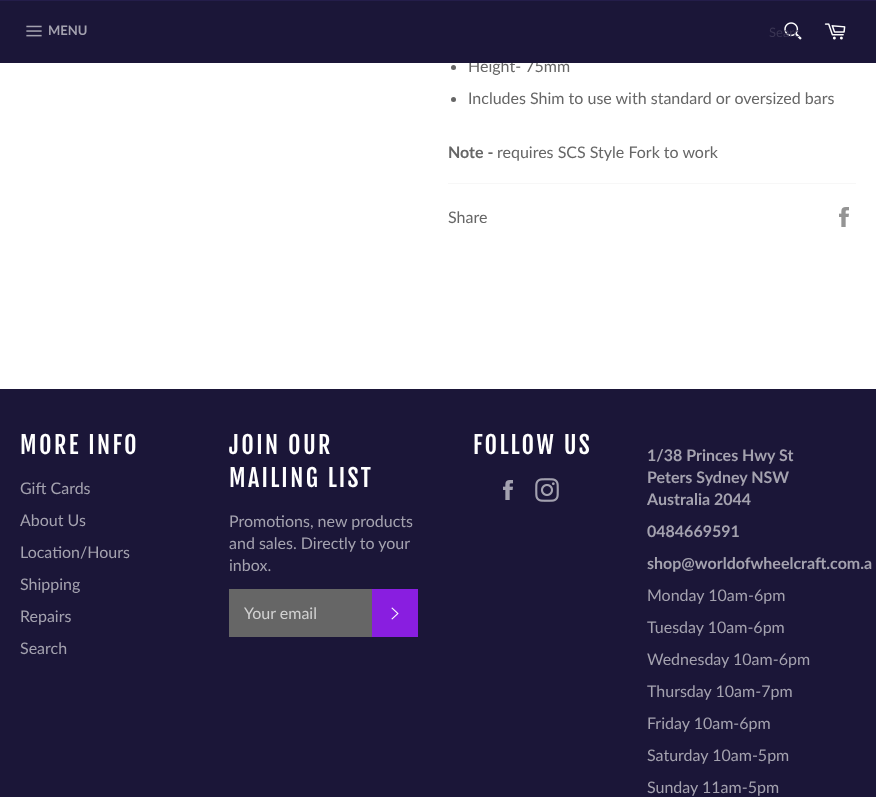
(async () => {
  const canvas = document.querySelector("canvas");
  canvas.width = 876;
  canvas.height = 797;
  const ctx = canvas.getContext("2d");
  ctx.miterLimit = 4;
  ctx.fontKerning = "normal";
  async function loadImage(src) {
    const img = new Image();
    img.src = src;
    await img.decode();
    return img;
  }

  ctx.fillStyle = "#ffffff";
  ctx.fillRect(0, 0, 876, 797);
  ctx.fillStyle = "#241d4a";
  ctx.fillRect(0, 0, 876, 1);
  ctx.fillStyle = "#666666";
  ctx.beginPath();
  ctx.arc(453.5, 67.5, 2.5, 0, Math.PI * 2);
  ctx.fill();
  ctx.beginPath();
  ctx.arc(453.5, 99.5, 2.5, 0, Math.PI * 2);
  ctx.fill();
  ctx.fillStyle = "#f7f7f7";
  ctx.fillRect(448, 183, 408, 1);
  ctx.drawImage(await loadImage("img/4.png"), 839, 207, 10, 20);
  for (const [x, y, w, h, color] of [
    [0, 389, 876, 408, "#1b1638"],
    [229, 589, 143, 48, "#666666"],
    [372, 589, 46, 48, "#891ee0"],
  ]) {
    ctx.fillStyle = color;
    ctx.fillRect(x, y, w, h);
  }
  ctx.drawImage(await loadImage("img/5.png"), 391, 607, 8, 13);
  ctx.drawImage(await loadImage("img/6.png"), 503, 480, 10, 20);
  ctx.drawImage(await loadImage("img/7.png"), 535, 478, 24, 24);
  ctx.font = "16px Lato";
  ctx.fillStyle = "#666666";
  ctx.fillText("Height- 75mm", 468, 72);
  ctx.fillStyle = "#1b1638";
  ctx.fillRect(0, 1, 876, 62);
  ctx.drawImage(await loadImage("img/2.png"), 784, 22, 18, 18);
  ctx.font = "13px Lato";
  ctx.fillStyle = "#3a3553";
  ctx.fillText("Searc", 769, 37);
  ctx.drawImage(await loadImage("img/3.png"), 824, 23, 22, 17);
  ctx.drawImage(await loadImage("img/1.png"), 26, 25, 16, 12);
  ctx.font = "bold 13px Lato";
  ctx.fillStyle = "#a4a2af";
  ctx.fillText("MENU", 48, 35);
  ctx.font = "16px Lato";
  ctx.fillStyle = "#666666";
  ctx.fillText("Includes Shim to use with standard or oversized bars", 468, 104);
  ctx.font = "bold 16px Lato";
  ctx.fillText("Note -", 448, 158);
  ctx.font = "16px Lato";
  ctx.fillText("requires SCS Style Fork to work", 497, 158);
  ctx.fillText("Share", 448, 223);
  ctx.letterSpacing = "2.4px";
  ctx.font = "24px Fjalla One";
  ctx.fillStyle = "#ffffff";
  ctx.fillText("MORE INFO", 20, 454);
  ctx.letterSpacing = "0px";
  ctx.font = "16px Lato";
  ctx.fillStyle = "#a4a2af";
  for (const [text, x, y] of [
    ["Gift Cards", 20, 494],
    ["About Us", 20, 526],
    ["Location/Hours", 20, 558],
    ["Shipping", 20, 590],
    ["Repairs", 20, 622],
    ["Search", 20, 654],
  ]) {
    ctx.fillText(text, x, y);
  }
  ctx.letterSpacing = "2.4px";
  ctx.font = "24px Fjalla One";
  ctx.fillStyle = "#ffffff";
  ctx.fillText("JOIN OUR", 229, 454);
  ctx.fillText("MAILING LIST", 229, 487);
  ctx.letterSpacing = "0px";
  ctx.font = "16px Lato";
  ctx.fillStyle = "#a4a2af";
  for (const [text, x, y] of [
    ["Promotions, new products", 229, 527],
    ["and sales. Directly to your", 229, 549],
    ["inbox.", 229, 571],
  ]) {
    ctx.fillText(text, x, y);
  }
  ctx.fillStyle = "#d1d1d1";
  ctx.fillText("Your email", 244, 619);
  ctx.letterSpacing = "2.4px";
  ctx.font = "24px Fjalla One";
  ctx.fillStyle = "#ffffff";
  ctx.fillText("FOLLOW US", 473, 454);
  ctx.letterSpacing = "0px";
  ctx.font = "bold 16px Lato";
  ctx.fillStyle = "#a4a2af";
  for (const [text, x, y] of [
    ["1/38 Princes Hwy St", 647, 461],
    ["Peters Sydney NSW", 647, 483],
    ["Australia 2044", 647, 505],
    ["0484669591", 647, 537],
    ["shop@worldofwheelcraft.com.a", 647, 569],
  ]) {
    ctx.fillText(text, x, y);
  }
  ctx.font = "16px Lato";
  for (const [text, x, y] of [
    ["Monday 10am-6pm", 647, 601],
    ["Tuesday 10am-6pm", 647, 633],
    ["Wednesday 10am-6pm", 647, 665],
    ["Thursday 10am-7pm", 647, 697],
    ["Friday 10am-6pm", 647, 729],
    ["Saturday 10am-5pm", 647, 761],
    ["Sunday 11am-5pm", 647, 793],
  ]) {
    ctx.fillText(text, x, y);
  }
})();
